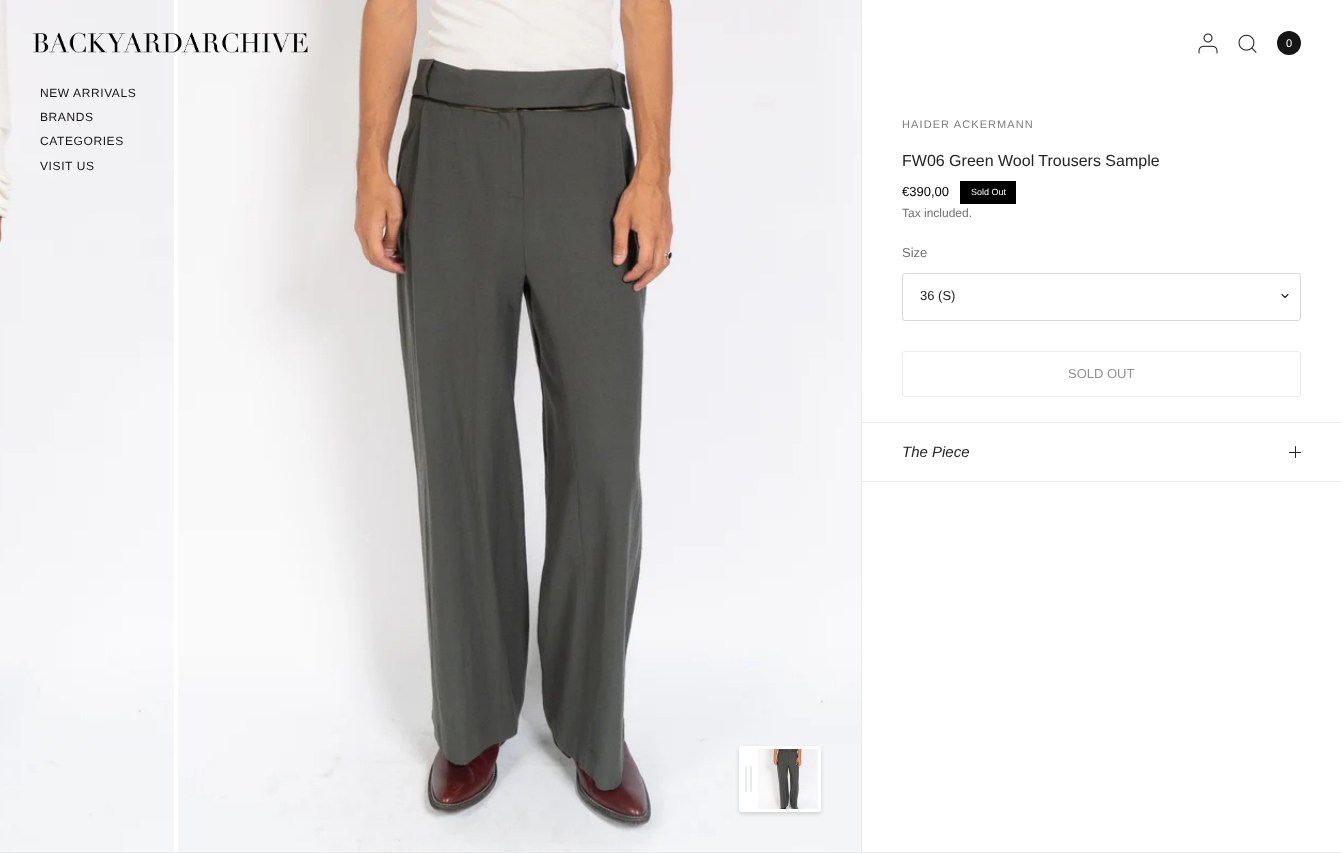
(async () => {
  const canvas = document.querySelector("canvas");
  canvas.width = 1341;
  canvas.height = 854;
  const ctx = canvas.getContext("2d");
  ctx.miterLimit = 4;
  ctx.fontKerning = "normal";
  async function loadImage(src) {
    const img = new Image();
    img.src = src;
    await img.decode();
    return img;
  }
  let path;

  ctx.fillStyle = "#ffffff";
  ctx.fillRect(0, 0, 1341, 854);
  ctx.drawImage(await loadImage("img/1.png"), 1198, 33, 20, 21);
  ctx.drawImage(await loadImage("img/2.png"), 1238, 34, 19, 19);
  ctx.fillStyle = "#151515";
  ctx.beginPath();
  ctx.arc(1289, 43, 12, 0, Math.PI * 2);
  ctx.fill();
  ctx.drawImage(await loadImage("img/4.png"), 0, 0, 174, 852);
  ctx.drawImage(await loadImage("img/5.png"), 178, 0, 683, 852);
  ctx.drawImage(await loadImage("img/3.png"), 32, 32, 276, 21);
  ctx.fillStyle = "#eaeaea";
  ctx.fillRect(0, 852, 1341, 1);
  ctx.fillStyle = "rgba(0, 0, 0, 0.15)";
  ctx.filter = "blur(2px)";
  ctx.beginPath();
  ctx.roundRect(739, 748, 82, 66, 3);
  ctx.fill();
  ctx.filter = "none";
  ctx.fillStyle = "#ffffff";
  ctx.beginPath();
  ctx.roundRect(739, 746, 82, 66, 3);
  ctx.fill();
  ctx.fillStyle = "#eaeaea";
  ctx.beginPath();
  ctx.roundRect(745, 766, 2, 26, 1);
  ctx.fill();
  ctx.beginPath();
  ctx.roundRect(750, 766, 2, 26, 1);
  ctx.fill();
  ctx.drawImage(await loadImage("img/6.png"), 758, 749, 60, 60);
  ctx.fillRect(861, 0, 1, 852);
  ctx.fillStyle = "#000000";
  ctx.fillRect(960, 181, 56, 23);
  ctx.beginPath();
  ctx.roundRect(902.5, 273.5, 398, 47, 2.5);
  ctx.strokeStyle = "#d9d9d9";
  ctx.stroke();
  path = new Path2D("M1288 294.5L1285 297.5L1282 294.5");
  ctx.strokeStyle = "#232323";
  ctx.lineWidth = 1.1;
  ctx.lineCap = "round";
  ctx.lineJoin = "round";
  ctx.stroke(path);
  ctx.beginPath();
  ctx.roundRect(902.5, 351.5, 398, 45, 2.5);
  ctx.strokeStyle = "#eaeaea";
  ctx.lineWidth = 1;
  ctx.lineJoin = "miter";
  ctx.stroke();
  ctx.fillStyle = "#eaeaea";
  ctx.fillRect(862, 422, 479, 1);
  ctx.fillRect(862, 481, 479, 1);
  ctx.fillStyle = "#232323";
  ctx.beginPath();
  ctx.roundRect(1295, 446, 1, 12, 0.5);
  ctx.fill();
  ctx.beginPath();
  ctx.roundRect(1289, 452, 12, 1, 0.5);
  ctx.fill();
  ctx.font = "11px Liberation Sans";
  ctx.fillStyle = "#ffffff";
  ctx.fillText("0", 1286, 47);
  ctx.letterSpacing = "0.6px";
  ctx.font = "12px Liberation Sans";
  ctx.fillStyle = "#151515";
  for (const [text, x, y] of [
    ["NEW ARRIVALS", 40, 97],
    ["BRANDS", 40, 121],
    ["CATEGORIES", 40, 145],
    ["VISIT US", 40, 170],
  ]) {
    ctx.fillText(text, x, y);
  }
  ctx.letterSpacing = "1.1px";
  ctx.font = "11px Liberation Sans";
  ctx.fillStyle = "#7b7b7b";
  ctx.fillText("HAIDER ACKERMANN", 902, 128);
  ctx.letterSpacing = "0px";
  ctx.font = "16px Liberation Sans";
  ctx.fillStyle = "#232323";
  ctx.fillText("FW06 Green Wool Trousers Sample", 902, 166);
  ctx.font = "13px Liberation Sans";
  ctx.fillStyle = "#000000";
  ctx.fillText("€390,00", 902, 196);
  ctx.font = "9px Liberation Sans";
  ctx.fillStyle = "#ffffff";
  ctx.fillText("Sold Out", 971, 195);
  ctx.font = "12px Liberation Sans";
  ctx.fillStyle = "#707070";
  ctx.fillText("Tax included.", 902, 217);
  ctx.font = "13px Liberation Sans";
  ctx.fillText("Size", 902, 257);
  ctx.fillStyle = "#232323";
  ctx.fillText("36 (S)", 920, 300);
  ctx.fillStyle = "#919191";
  ctx.fillText("SOLD OUT", 1068, 378);
  ctx.font = "italic 15px Liberation Sans";
  ctx.fillStyle = "#232323";
  ctx.fillText("The Piece", 902, 457);
})();
